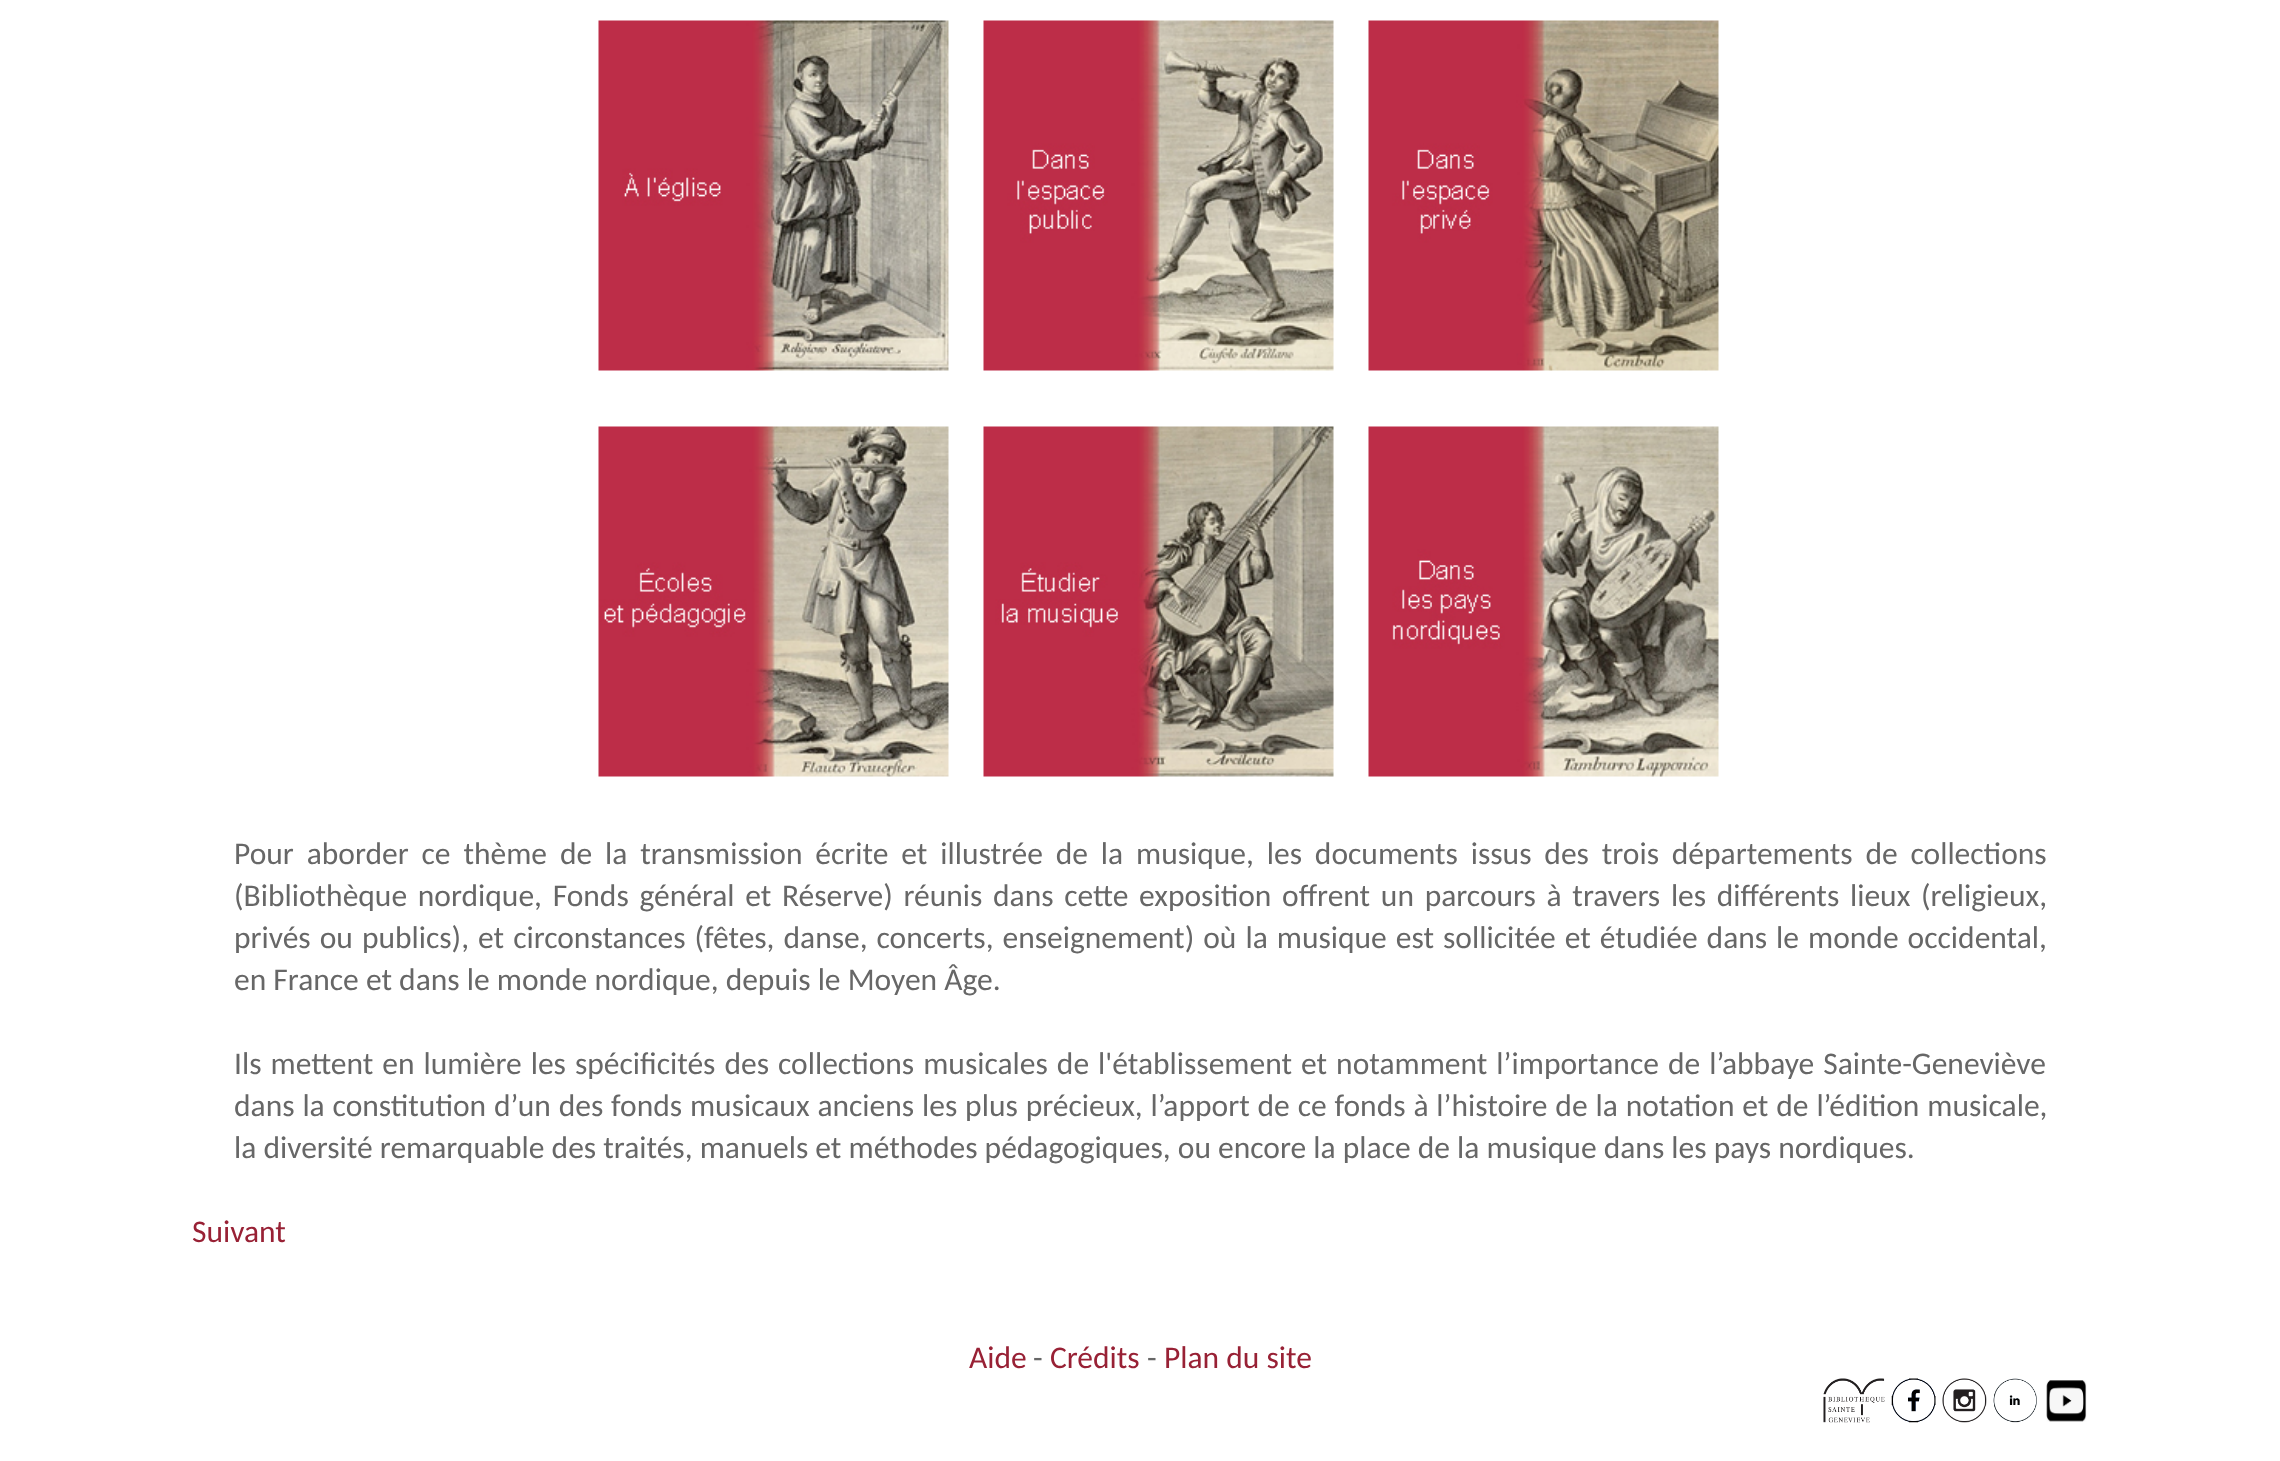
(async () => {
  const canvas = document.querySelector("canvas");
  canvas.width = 2280;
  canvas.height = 1461;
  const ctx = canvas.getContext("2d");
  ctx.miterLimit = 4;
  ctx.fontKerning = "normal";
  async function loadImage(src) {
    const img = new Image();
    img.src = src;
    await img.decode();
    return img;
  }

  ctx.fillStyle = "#ffffff";
  ctx.fillRect(0, 0, 2280, 1461);
  ctx.drawImage(await loadImage("img/1.png"), 598, 20, 351, 351);
  ctx.drawImage(await loadImage("img/2.png"), 983, 20, 351, 351);
  ctx.drawImage(await loadImage("img/3.png"), 1368, 20, 351, 351);
  ctx.drawImage(await loadImage("img/4.png"), 598, 426, 351, 351);
  ctx.drawImage(await loadImage("img/5.png"), 983, 426, 351, 351);
  ctx.drawImage(await loadImage("img/6.png"), 1368, 426, 351, 351);
  ctx.drawImage(await loadImage("img/7.png"), 1823, 1378, 62, 45);
  ctx.drawImage(await loadImage("img/8.png"), 1891, 1378, 45, 45);
  ctx.drawImage(await loadImage("img/9.png"), 1942, 1378, 45, 45);
  ctx.drawImage(await loadImage("img/10.png"), 1993, 1378, 44, 45);
  ctx.drawImage(await loadImage("img/11.png"), 2046, 1380, 41, 42);
  ctx.wordSpacing = "5.75px";
  ctx.font = "31.5px Carlito";
  ctx.fillStyle = "#676767";
  ctx.fillText("Pour aborder ce thème de la transmission écrite et illustrée de la musique, les documents issus des trois départements de collections", 234, 864);
  ctx.wordSpacing = "3.6px";
  ctx.fillText("(Bibliothèque nordique, Fonds général et Réserve) réunis dans cette exposition offrent un parcours à travers les différents lieux (religieux,", 234, 906);
  ctx.wordSpacing = "1.9px";
  ctx.fillText("privés ou publics), et circonstances (fêtes, danse, concerts, enseignement) où la musique est sollicitée et étudiée dans le monde occidental,", 234, 948);
  ctx.wordSpacing = "0px";
  ctx.fillText("en France et dans le monde nordique, depuis le Moyen Âge.", 234, 990);
  ctx.wordSpacing = "1.9px";
  ctx.fillText("Ils mettent en lumière les spécificités des collections musicales de l'établissement et notamment l’importance de l’abbaye Sainte-Geneviève", 234, 1074);
  ctx.wordSpacing = "0.75px";
  ctx.fillText("dans la constitution d’un des fonds musicaux anciens les plus précieux, l’apport de ce fonds à l’histoire de la notation et de l’édition musicale,", 234, 1116);
  ctx.wordSpacing = "0px";
  ctx.fillText("la diversité remarquable des traités, manuels et méthodes pédagogiques, ou encore la place de la musique dans les pays nordiques.", 234, 1158);
  ctx.fillStyle = "#982135";
  ctx.fillText("Suivant", 192, 1242);
  ctx.fillText("Aide", 969, 1368);
  ctx.fillStyle = "#676767";
  ctx.fillText("-", 1033, 1368);
  ctx.fillStyle = "#982135";
  ctx.fillText("Crédits", 1050, 1368);
  ctx.fillStyle = "#676767";
  ctx.fillText("-", 1147, 1368);
  ctx.fillStyle = "#982135";
  ctx.fillText("Plan du site", 1164, 1368);
})();
